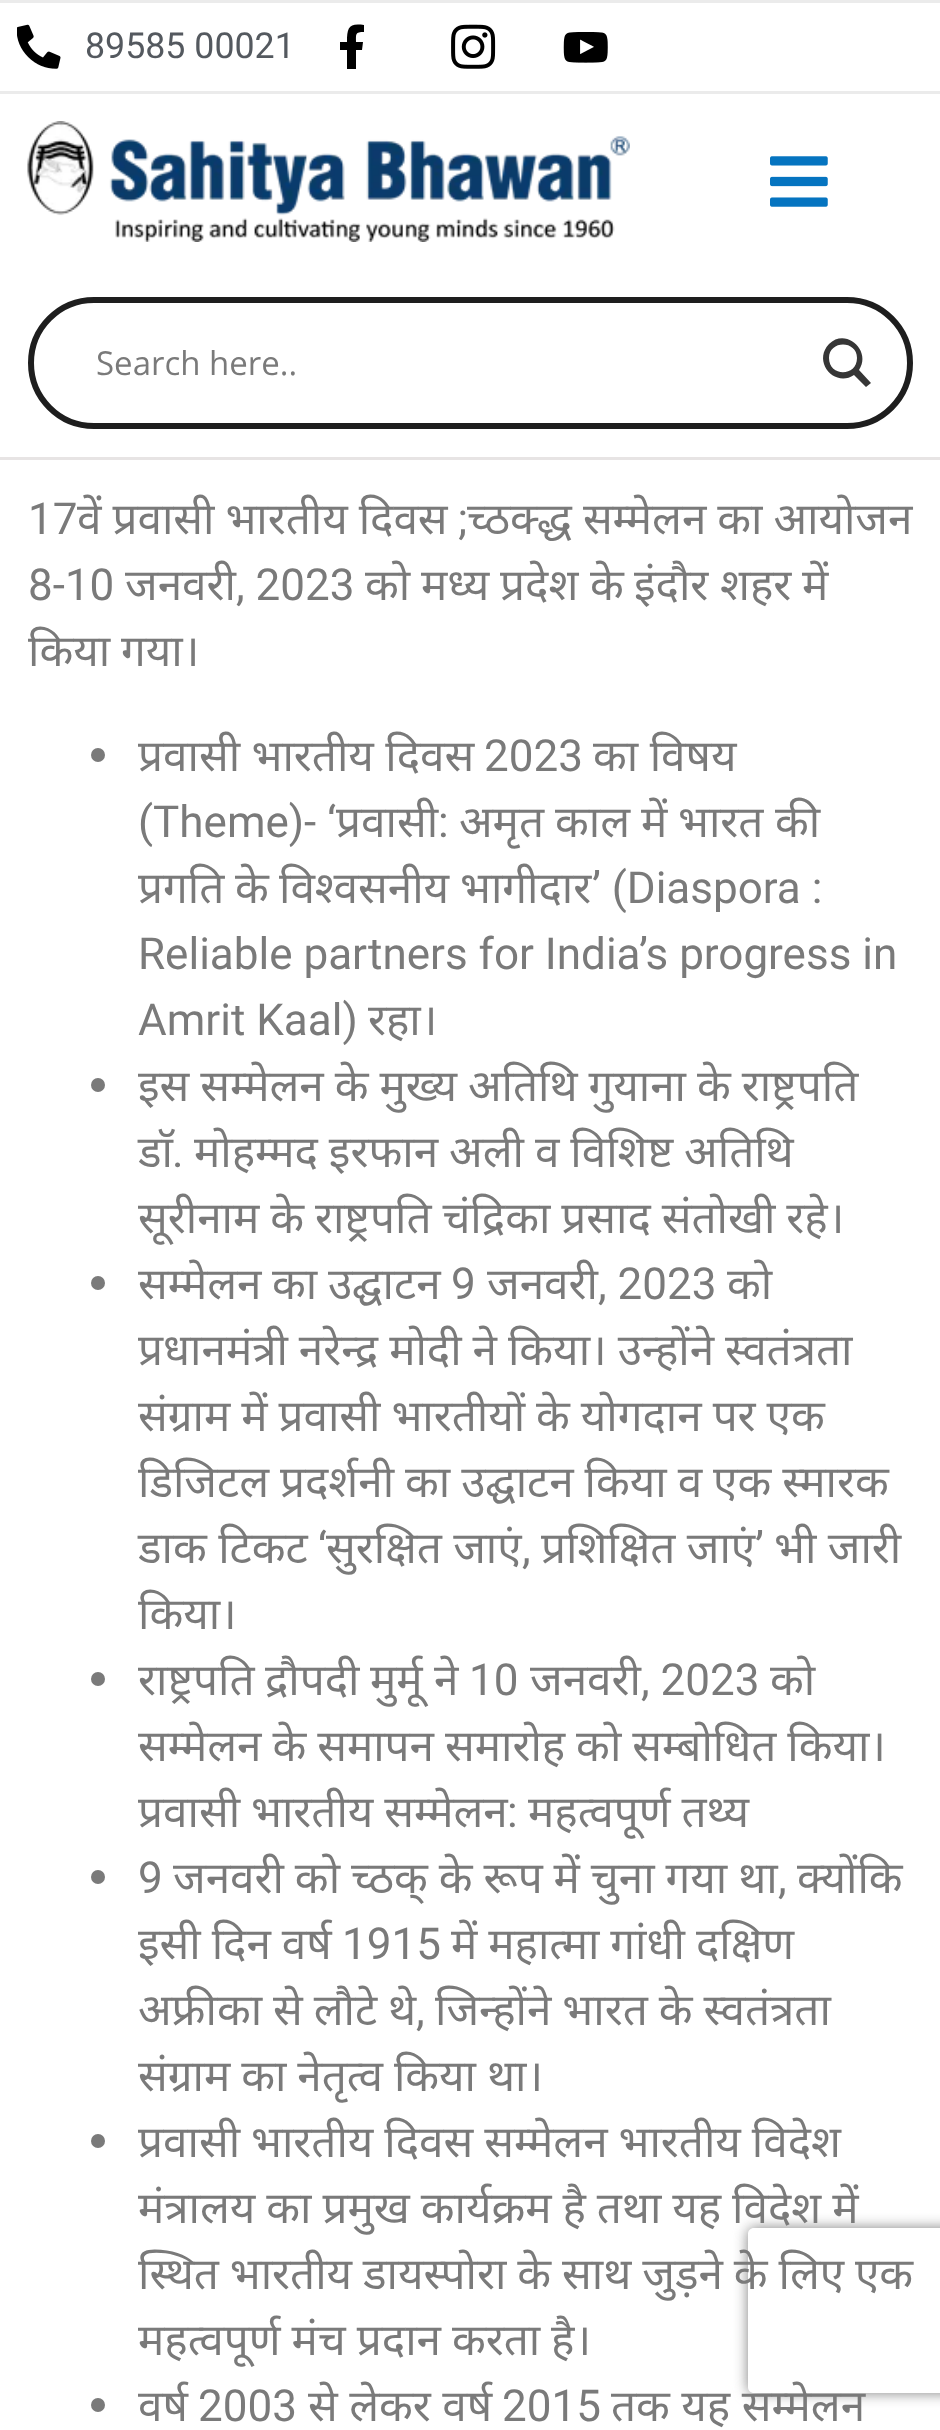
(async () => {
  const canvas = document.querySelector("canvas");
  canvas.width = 940;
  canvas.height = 2430;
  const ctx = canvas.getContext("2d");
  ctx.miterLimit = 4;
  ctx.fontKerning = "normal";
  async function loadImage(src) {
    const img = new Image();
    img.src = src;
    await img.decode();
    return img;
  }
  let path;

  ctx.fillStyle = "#ffffff";
  ctx.fillRect(0, 0, 940, 2430);
  ctx.fillStyle = "#ebebeb";
  ctx.fillRect(0, 0, 940, 3);
  ctx.fillRect(0, 91, 940, 3);
  ctx.drawImage(await loadImage("img/1.png"), 17, 24, 44, 45);
  ctx.fillStyle = "#000000";
  path = new Path2D("M362 50H356V69H347V50H340V42H347C347 27 349 23 364 25V32C355 32 356 34 356 42H363Z");
  ctx.fill(path);
  ctx.drawImage(await loadImage("img/2.png"), 451, 24, 45, 45);
  ctx.drawImage(await loadImage("img/3.png"), 563, 32, 45, 31);
  ctx.drawImage(await loadImage("img/4.png"), 27, 121, 603, 121);
  ctx.drawImage(await loadImage("img/5.png"), 770, 156, 58, 51);
  ctx.fillStyle = "#e7e4e4";
  ctx.fillRect(0, 457, 940, 3);
  ctx.beginPath();
  ctx.roundRect(31, 300, 879, 126, 63);
  ctx.strokeStyle = "#1e1e1e";
  ctx.lineWidth = 6;
  ctx.stroke();
  ctx.fillStyle = "#363636";
  path = new Path2D("M871 383L859 370C872 351 846 327 829 344C812 362 835 388 854 375L866 387ZM829 358C829 340 857 340 857 358C857 377 829 377 829 358Z");
  ctx.fill(path);
  ctx.fillStyle = "#7a7a7a";
  ctx.beginPath();
  ctx.arc(98, 755, 7, 0, Math.PI * 2);
  ctx.fill();
  ctx.beginPath();
  ctx.arc(98, 1085, 7, 0, Math.PI * 2);
  ctx.fill();
  ctx.beginPath();
  ctx.arc(98, 1283, 7, 0, Math.PI * 2);
  ctx.fill();
  ctx.beginPath();
  ctx.arc(98, 1679, 7, 0, Math.PI * 2);
  ctx.fill();
  ctx.beginPath();
  ctx.arc(98, 1877, 7, 0, Math.PI * 2);
  ctx.fill();
  ctx.beginPath();
  ctx.arc(98, 2141, 7, 0, Math.PI * 2);
  ctx.fill();
  ctx.beginPath();
  ctx.arc(98, 2405, 7, 0, Math.PI * 2);
  ctx.fill();
  ctx.save();
  path = new Path2D("M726 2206H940V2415H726ZM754 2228H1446C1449.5 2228 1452 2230.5 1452 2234V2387C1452 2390.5 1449.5 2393 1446 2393H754C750.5 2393 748 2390.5 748 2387V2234C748 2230.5 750.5 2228 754 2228Z");
  ctx.clip(path, "evenodd");
  ctx.fillStyle = "#808080";
  ctx.filter = "blur(7px)";
  ctx.beginPath();
  ctx.roundRect(748, 2228, 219, 165, 6);
  ctx.fill();
  ctx.filter = "none";
  ctx.restore();
  ctx.font = "35.75px Roboto";
  ctx.fillStyle = "#54595f";
  ctx.fillText("89585 00021", 85, 58);
  ctx.font = "33px Open Sans";
  ctx.fillStyle = "#7a7a7a";
  ctx.fillText("Search here..", 96, 375);
  ctx.font = "44px Roboto";
  ctx.fillText("17", 28, 534);
  ctx.wordSpacing = "-0.5px";
  ctx.font = "44px Noto Sans";
  ctx.fillText("वें प्रवासी भारतीय दिवस", 77, 534);
  ctx.wordSpacing = "0px";
  ctx.font = "44px Roboto";
  ctx.fillText(";", 458, 534);
  ctx.wordSpacing = "-0.5px";
  ctx.font = "44px Noto Sans";
  ctx.fillText("च्ठक्द्ध सम्मेलन का आयोजन", 467, 534);
  ctx.wordSpacing = "0px";
  ctx.font = "44px Roboto";
  ctx.fillText("8-10", 28, 600);
  ctx.font = "44px Noto Sans";
  ctx.fillText("जनवरी", 125, 600);
  ctx.font = "44px Roboto";
  ctx.fillText(", 2023", 236, 600);
  ctx.font = "44px Noto Sans";
  for (const [text, x, y] of [
    ["को", 365, 600],
    ["मध्य", 421, 600],
    ["प्रदेश", 500, 600],
    ["के", 590, 600],
    ["इंदौर", 634, 600],
    ["शहर", 720, 600],
    ["में", 802, 600],
  ]) {
    ctx.fillText(text, x, y);
  }
  ctx.wordSpacing = "-0.5px";
  ctx.fillText("किया गया।", 28, 666);
  ctx.wordSpacing = "0px";
  ctx.fillText("प्रवासी भारतीय दिवस", 138, 771);
  ctx.font = "44px Roboto";
  ctx.fillText("2023", 484, 771);
  ctx.font = "44px Noto Sans";
  ctx.fillText("का विषय", 593, 771);
  ctx.font = "44px Roboto";
  ctx.fillText("(Theme)- ‘", 138, 837);
  ctx.font = "44px Noto Sans";
  ctx.fillText("प्रवासी", 336, 837);
  ctx.font = "44px Roboto";
  ctx.fillText(":", 438, 837);
  ctx.font = "44px Noto Sans";
  for (const [text, x, y] of [
    ["अमृत", 459, 837],
    ["काल", 555, 837],
    ["में", 641, 837],
    ["भारत", 678, 837],
    ["की", 775, 837],
    ["प्रगति", 138, 903],
    ["के", 235, 903],
    ["विश्वसनीय", 279, 903],
    ["भागीदार", 460, 903],
  ]) {
    ctx.fillText(text, x, y);
  }
  ctx.font = "44px Roboto";
  for (const [text, x, y] of [
    ["’ (Diaspora :", 592, 903],
    ["Reliable partners for India’s progress in", 138, 969],
    ["Amrit Kaal)", 138, 1035],
  ]) {
    ctx.fillText(text, x, y);
  }
  ctx.font = "44px Noto Sans";
  ctx.fillText("रहा।", 368, 1035);
  ctx.wordSpacing = "-0.5px";
  ctx.fillText("इस सम्मेलन के मुख्य अतिथि गुयाना के राष्ट्रपति", 138, 1101);
  ctx.wordSpacing = "0px";
  ctx.fillText("डाॅ", 138, 1167);
  ctx.font = "44px Roboto";
  ctx.fillText(".", 172, 1167);
  ctx.wordSpacing = "-0.5px";
  ctx.font = "44px Noto Sans";
  ctx.fillText("मोहम्मद इरफान अली व विशिष्ट अतिथि", 194, 1167);
  ctx.fillText("सूरीनाम के राष्ट्रपति चंद्रिका प्रसाद संतोखी रहे।", 138, 1233);
  ctx.wordSpacing = "0px";
  for (const [text, x, y] of [
    ["सम्मेलन", 138, 1299],
    ["का", 272, 1299],
    ["उद्घाटन", 328, 1299],
  ]) {
    ctx.fillText(text, x, y);
  }
  ctx.font = "44px Roboto";
  ctx.fillText("9", 451, 1299);
  ctx.font = "44px Noto Sans";
  ctx.fillText("जनवरी", 487, 1299);
  ctx.font = "44px Roboto";
  ctx.fillText(", 2023", 598, 1299);
  ctx.font = "44px Noto Sans";
  ctx.fillText("को", 727, 1299);
  ctx.wordSpacing = "-0.5px";
  for (const [text, x, y] of [
    ["प्रधानमंत्री नरेन्द्र मोदी ने किया। उन्होंने स्वतंत्रता", 138, 1365],
    ["संग्राम में प्रवासी भारतीयों के योगदान पर एक", 138, 1431],
    ["डिजिटल प्रदर्शनी का उद्घाटन किया व एक स्मारक", 138, 1497],
  ]) {
    ctx.fillText(text, x, y);
  }
  ctx.wordSpacing = "0px";
  for (const [text, x, y] of [
    ["डाक टिकट", 138, 1563],
    ["प्रशिक्षित जाएं", 541, 1563],
    ["भी जारी", 774, 1563],
  ]) {
    ctx.fillText(text, x, y);
  }
  ctx.font = "44px Roboto";
  ctx.fillText("‘", 318, 1563);
  ctx.font = "44px Noto Sans";
  ctx.fillText("सुरक्षित जाएं", 326, 1563);
  ctx.font = "44px Roboto";
  ctx.fillText("’", 755, 1563);
  ctx.fillText(",", 522, 1563);
  ctx.font = "44px Noto Sans";
  for (const [text, x, y] of [
    ["किया।", 138, 1629],
    ["राष्ट्रपति", 138, 1695],
    ["द्रौपदी", 265, 1695],
    ["मुर्मू", 370, 1695],
    ["ने", 434, 1695],
  ]) {
    ctx.fillText(text, x, y);
  }
  ctx.font = "44px Roboto";
  ctx.fillText("10", 469, 1695);
  ctx.font = "44px Noto Sans";
  ctx.fillText("जनवरी", 530, 1695);
  ctx.font = "44px Roboto";
  ctx.fillText(", 2023", 641, 1695);
  ctx.font = "44px Noto Sans";
  ctx.fillText("को", 770, 1695);
  ctx.wordSpacing = "-0.5px";
  ctx.fillText("सम्मेलन के समापन समारोह को सम्बोधित किया।", 138, 1761);
  ctx.fillText("प्रवासी भारतीय सम्मेलन", 138, 1827);
  ctx.wordSpacing = "0px";
  ctx.font = "44px Roboto";
  ctx.fillText(":", 507, 1827);
  ctx.wordSpacing = "-0.5px";
  ctx.font = "44px Noto Sans";
  ctx.fillText("महत्वपूर्ण तथ्य", 528, 1827);
  ctx.wordSpacing = "0px";
  ctx.font = "44px Roboto";
  ctx.fillText("9", 138, 1893);
  ctx.wordSpacing = "-0.5px";
  ctx.font = "44px Noto Sans";
  ctx.fillText("जनवरी को च्ठक् के रूप में चुना गया था", 173, 1893);
  ctx.wordSpacing = "0px";
  ctx.fillText("क्योंकि", 797, 1893);
  ctx.font = "44px Roboto";
  ctx.fillText(",", 778, 1893);
  ctx.wordSpacing = "-0.5px";
  ctx.font = "44px Noto Sans";
  ctx.fillText("इसी दिन वर्ष", 138, 1959);
  ctx.wordSpacing = "0px";
  ctx.font = "44px Roboto";
  ctx.fillText("1915", 342, 1959);
  ctx.wordSpacing = "-0.5px";
  ctx.font = "44px Noto Sans";
  ctx.fillText("में महात्मा गांधी दक्षिण", 451, 1959);
  ctx.fillText("अफ्रीका से लौटे थे", 138, 2025);
  ctx.wordSpacing = "0px";
  ctx.font = "44px Roboto";
  ctx.fillText(",", 416, 2025);
  ctx.wordSpacing = "-0.5px";
  ctx.font = "44px Noto Sans";
  for (const [text, x, y] of [
    ["जिन्होंने भारत के स्वतंत्रता", 435, 2025],
    ["संग्राम का नेतृत्व किया था।", 138, 2091],
    ["प्रवासी भारतीय दिवस सम्मेलन भारतीय विदेश", 138, 2157],
    ["मंत्रालय का प्रमुख कार्यक्रम है तथा यह विदेश में", 138, 2223],
    ["स्थित भारतीय डायस्पोरा के साथ जुड़ने के लिए एक", 138, 2289],
    ["महत्वपूर्ण मंच प्रदान करता है।", 138, 2355],
  ]) {
    ctx.fillText(text, x, y);
  }
  ctx.wordSpacing = "0px";
  ctx.fillText("वर्ष", 138, 2421);
  ctx.font = "44px Roboto";
  ctx.fillText("2003", 198, 2421);
  ctx.font = "44px Noto Sans";
  ctx.fillText("से लेकर वर्ष", 308, 2421);
  ctx.font = "44px Roboto";
  ctx.fillText("2015", 502, 2421);
  ctx.font = "44px Noto Sans";
  ctx.fillText("तक यह सम्मेलन", 611, 2421);
})();
